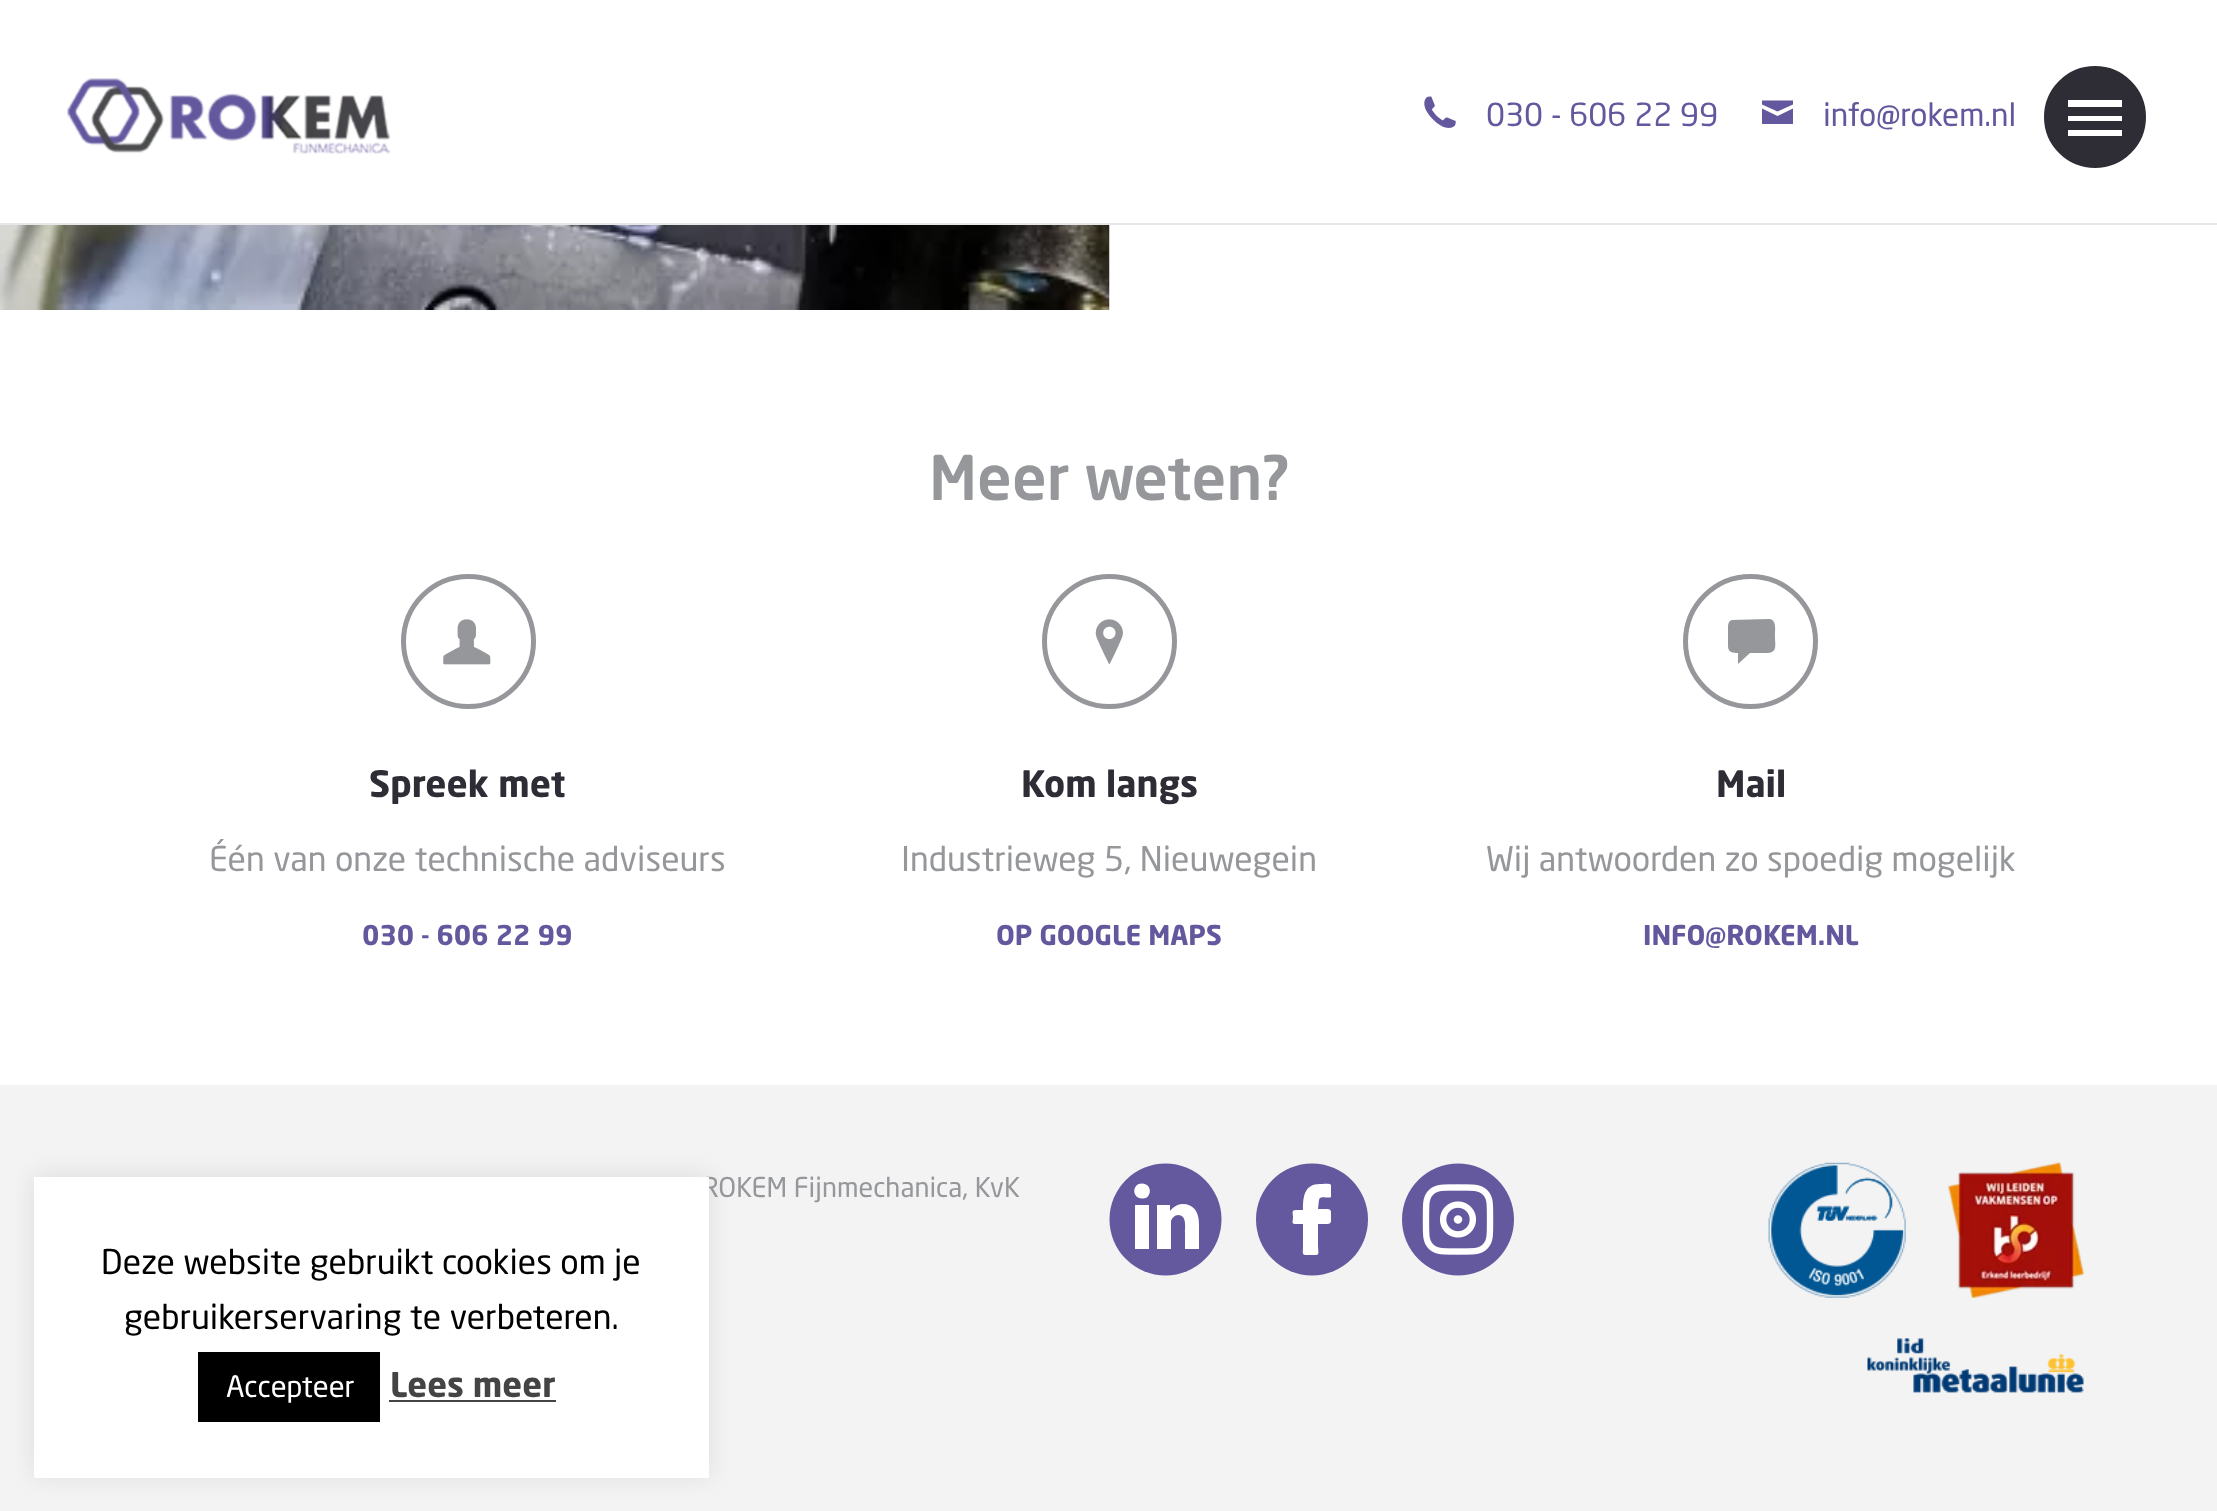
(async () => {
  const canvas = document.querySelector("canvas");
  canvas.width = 2217;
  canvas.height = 1511;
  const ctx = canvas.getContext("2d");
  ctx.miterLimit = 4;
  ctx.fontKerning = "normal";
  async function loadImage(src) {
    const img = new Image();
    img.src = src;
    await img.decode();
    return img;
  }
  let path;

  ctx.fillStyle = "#f3f3f4";
  ctx.fillRect(0, 0, 2217, 1511);
  ctx.fillStyle = "#ffffff";
  ctx.fillRect(0, 0, 2217, 223);
  ctx.fillStyle = "#e7e6e8";
  ctx.fillRect(0, 223, 2217, 2);
  ctx.drawImage(await loadImage("img/1.png"), 67, 78, 324, 76);
  ctx.drawImage(await loadImage("img/2.png"), 1424, 96, 32, 32);
  ctx.fillStyle = "#63589e";
  path = new Path2D("M1777.5 111.5L1793 104.5V100.5H1762V104.5ZM1777.5 116L1762 108.5V124H1793V108.5Z");
  ctx.fill(path);
  ctx.fillStyle = "#ffffff";
  ctx.fillRect(0, 225, 2217, 860);
  ctx.drawImage(await loadImage("img/3.png"), 0, 225, 1110, 85);
  ctx.beginPath();
  ctx.arc(468.5, 641.5, 65, 0, Math.PI * 2);
  ctx.strokeStyle = "#95979a";
  ctx.lineWidth = 5;
  ctx.stroke();
  ctx.drawImage(await loadImage("img/4.png"), 443, 619, 48, 46);
  ctx.beginPath();
  ctx.arc(1109.5, 641.5, 65, 0, Math.PI * 2);
  ctx.stroke();
  ctx.drawImage(await loadImage("img/5.png"), 1095, 619, 28, 46);
  ctx.beginPath();
  ctx.arc(1750.5, 641.5, 65, 0, Math.PI * 2);
  ctx.stroke();
  ctx.fillStyle = "#95979a";
  path = new Path2D("M1769 619L1732 620C1728 621 1728 625 1728 629V640C1728 649 1727 653 1738 653V664L1750 653H1766C1778 653 1775 646 1775 636C1775 631 1777 619 1769 619Z");
  ctx.fill(path);
  ctx.fillStyle = "#64599f";
  ctx.beginPath();
  ctx.arc(1165.5, 1219.5, 56, 0, Math.PI * 2);
  ctx.fill();
  ctx.fillStyle = "#ffffff";
  path = new Path2D("M1142 1183.5C1132 1183.5 1131.5 1198 1142 1198.5C1152 1199.5 1153 1183.5 1142 1183.5Z");
  ctx.fill(path);
  ctx.fillRect(1135, 1205, 14, 44);
  path = new Path2D("M1183 1204C1175 1204 1170 1211 1170 1211V1205H1157V1249H1171V1221C1172 1218 1175 1215 1178 1215C1187 1215 1185 1227 1185 1233V1249H1199V1224C1199 1210 1192 1204 1183 1204Z");
  ctx.fill(path);
  ctx.fillStyle = "#64599f";
  ctx.beginPath();
  ctx.arc(1312, 1219.5, 56, 0, Math.PI * 2);
  ctx.fill();
  ctx.fillStyle = "#ffffff";
  path = new Path2D("M1303 1224H1295C1291 1224 1293 1221 1293 1217C1293 1213 1291 1210 1296 1210H1303C1303 1197 1304 1184 1320 1184C1322 1184 1331 1183 1331 1185V1197C1329 1199 1320 1195 1319 1200L1318 1209H1327C1332 1209 1331 1212 1331 1217C1331 1221 1332 1224 1327 1224H1318V1243C1318 1256 1321 1255 1311 1255C1301 1255 1303 1256 1303 1245Z");
  ctx.fill(path);
  ctx.drawImage(await loadImage("img/6.png"), 1402, 1163, 112, 113);
  ctx.drawImage(await loadImage("img/7.png"), 1768, 1162, 138, 136);
  ctx.drawImage(await loadImage("img/8.png"), 1948, 1162, 136, 136);
  ctx.drawImage(await loadImage("img/9.png"), 1867, 1338, 217, 55);
  ctx.fillStyle = "#2e2c34";
  ctx.beginPath();
  ctx.arc(2095, 117, 53.5, 0, Math.PI * 2);
  ctx.fill();
  ctx.strokeStyle = "#ffffff";
  ctx.stroke();
  ctx.fillStyle = "#ffffff";
  path = new Path2D("M2068 100H2122V107H2068ZM2068 121V116H2122V121ZM2068 136V130H2122V136Z");
  ctx.fill(path);
  ctx.fillStyle = "rgba(172, 171, 171, 0.3)";
  ctx.filter = "blur(11px)";
  ctx.beginPath();
  ctx.rect(34, 1175, 675, 301);
  ctx.fill();
  ctx.filter = "none";
  ctx.font = "31.5px 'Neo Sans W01'";
  ctx.fillStyle = "#63589e";
  ctx.fillText("030 - 606 22 99", 1486, 126);
  ctx.fillText("info@rokem.nl", 1823, 126);
  ctx.font = "500 60.75px 'Neo Sans W01'";
  ctx.fillStyle = "#95979a";
  ctx.fillText("Meer weten?", 929, 500);
  ctx.font = "bold 36px 'Neo Sans W01'";
  ctx.fillStyle = "#2e2c34";
  ctx.fillText("Spreek met", 369, 797);
  ctx.font = "33.75px 'Neo Sans W01'";
  ctx.fillStyle = "#95979a";
  ctx.fillText("Één van onze technische adviseurs", 209, 871);
  ctx.font = "bold 27px 'Neo Sans W01'";
  ctx.fillStyle = "#63589e";
  ctx.fillText("030 - 606 22 99", 362, 945);
  ctx.font = "bold 36px 'Neo Sans W01'";
  ctx.fillStyle = "#2e2c34";
  ctx.fillText("Kom langs", 1021, 797);
  ctx.font = "33.75px 'Neo Sans W01'";
  ctx.fillStyle = "#95979a";
  ctx.fillText("Industrieweg 5, Nieuwegein", 901, 871);
  ctx.font = "bold 27px 'Neo Sans W01'";
  ctx.fillStyle = "#63589e";
  ctx.fillText("OP GOOGLE MAPS", 996, 945);
  ctx.font = "bold 36px 'Neo Sans W01'";
  ctx.fillStyle = "#2e2c34";
  ctx.fillText("Mail", 1716, 797);
  ctx.font = "33.75px 'Neo Sans W01'";
  ctx.fillStyle = "#95979a";
  ctx.fillText("Wij antwoorden zo spoedig mogelijk", 1486, 871);
  ctx.font = "bold 27px 'Neo Sans W01'";
  ctx.fillStyle = "#63589e";
  ctx.fillText("INFO@ROKEM.NL", 1643, 945);
  ctx.font = "27px 'Neo Sans W01'";
  ctx.fillStyle = "#95979a";
  ctx.fillText("ROKEM Fijnmechanica, KvK", 702, 1197);
  ctx.fillStyle = "#ffffff";
  ctx.fillRect(34, 1177, 675, 301);
  ctx.font = "33.75px 'Neo Sans W01'";
  ctx.fillStyle = "#000000";
  ctx.fillText("Deze website gebruikt cookies om je", 101, 1274);
  ctx.fillText("gebruikerservaring te verbeteren.", 124, 1329);
  ctx.fillRect(198, 1352, 182, 70);
  ctx.font = "29.25px 'Neo Sans W01'";
  ctx.fillStyle = "#ffffff";
  ctx.fillText("Accepteer", 226, 1397);
  ctx.font = "bold 33.75px 'Neo Sans W01'";
  ctx.fillStyle = "#444444";
  ctx.fillText("Lees meer", 390, 1397);
  ctx.fillRect(389, 1400, 167, 2);
})();
